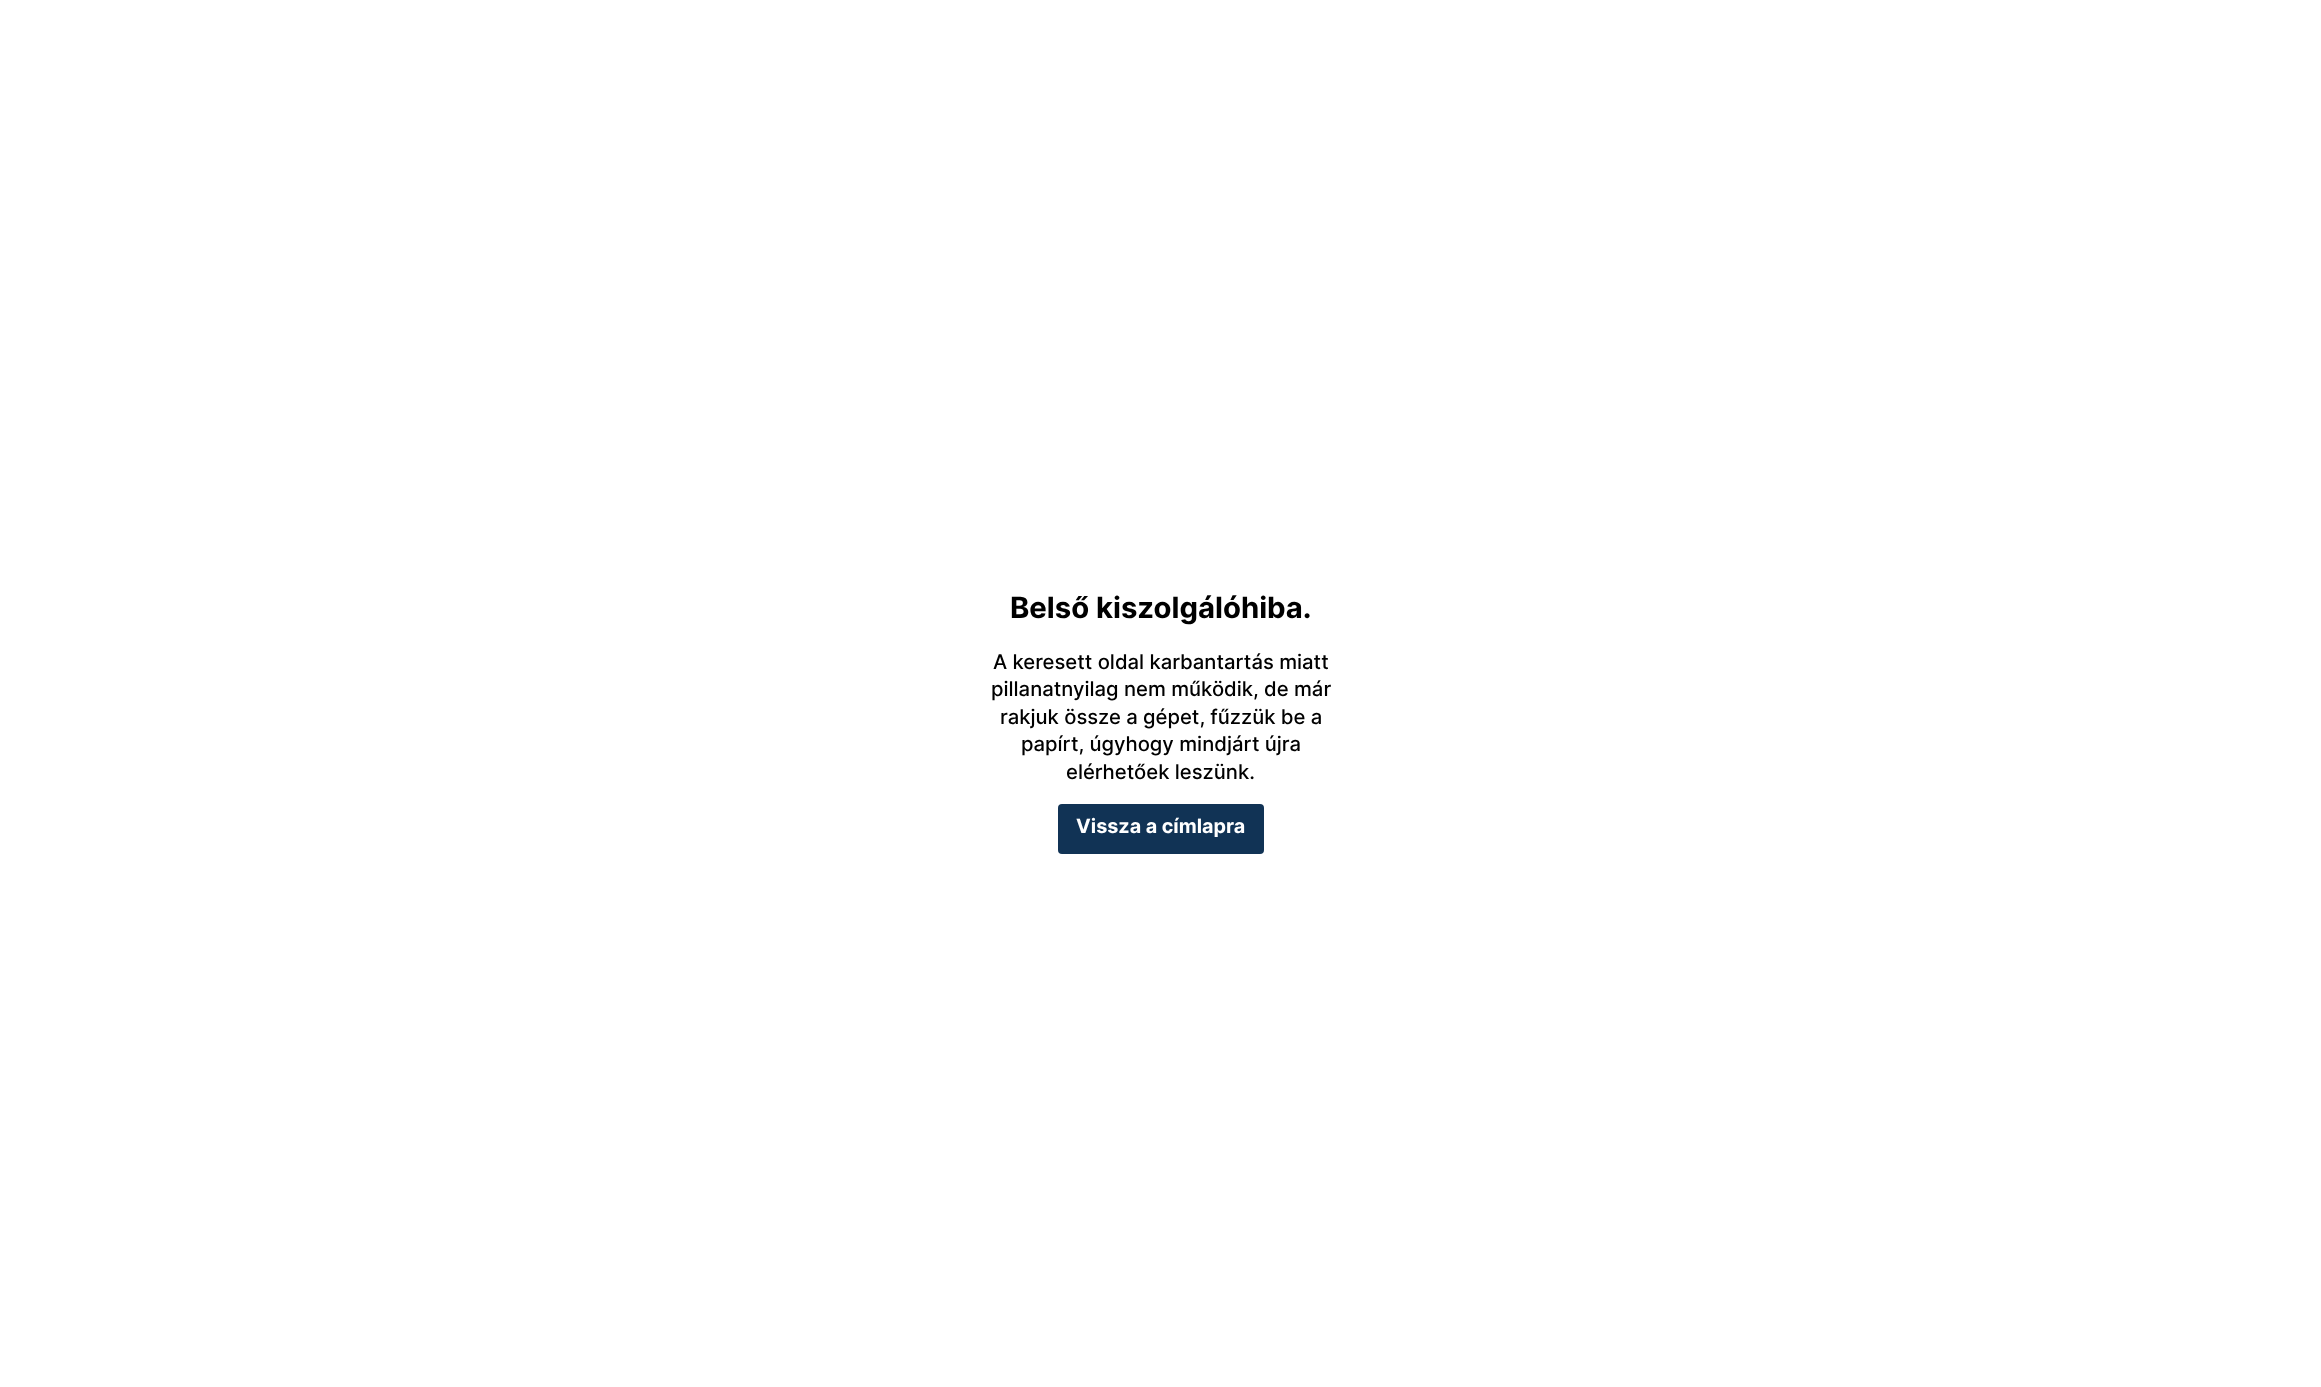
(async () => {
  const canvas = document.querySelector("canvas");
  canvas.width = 2321;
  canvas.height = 1387;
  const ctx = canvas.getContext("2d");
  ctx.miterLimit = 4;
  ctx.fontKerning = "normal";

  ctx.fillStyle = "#ffffff";
  ctx.fillRect(0, 0, 2321, 1387);
  ctx.fillStyle = "#113355";
  ctx.beginPath();
  ctx.roundRect(1058, 804, 206, 50, 4);
  ctx.fill();
  ctx.font = "bold 29.25px Inter";
  ctx.fillStyle = "#000000";
  ctx.fillText("Belső kiszolgálóhiba.", 1010, 618);
  ctx.font = "500 20.25px Inter";
  for (const [text, x, y] of [
    ["A keresett oldal karbantartás miatt", 993, 669],
    ["pillanatnyilag nem működik, de már", 991, 696],
    ["rakjuk össze a gépet, fűzzük be a", 1000, 724],
    ["papírt, úgyhogy mindjárt újra", 1021, 751],
    ["elérhetőek leszünk.", 1066, 779],
  ]) {
    ctx.fillText(text, x, y);
  }
  ctx.font = "bold 19.75px Inter";
  ctx.fillStyle = "#ffffff";
  ctx.fillText("Vissza a címlapra", 1076, 833);
})();
